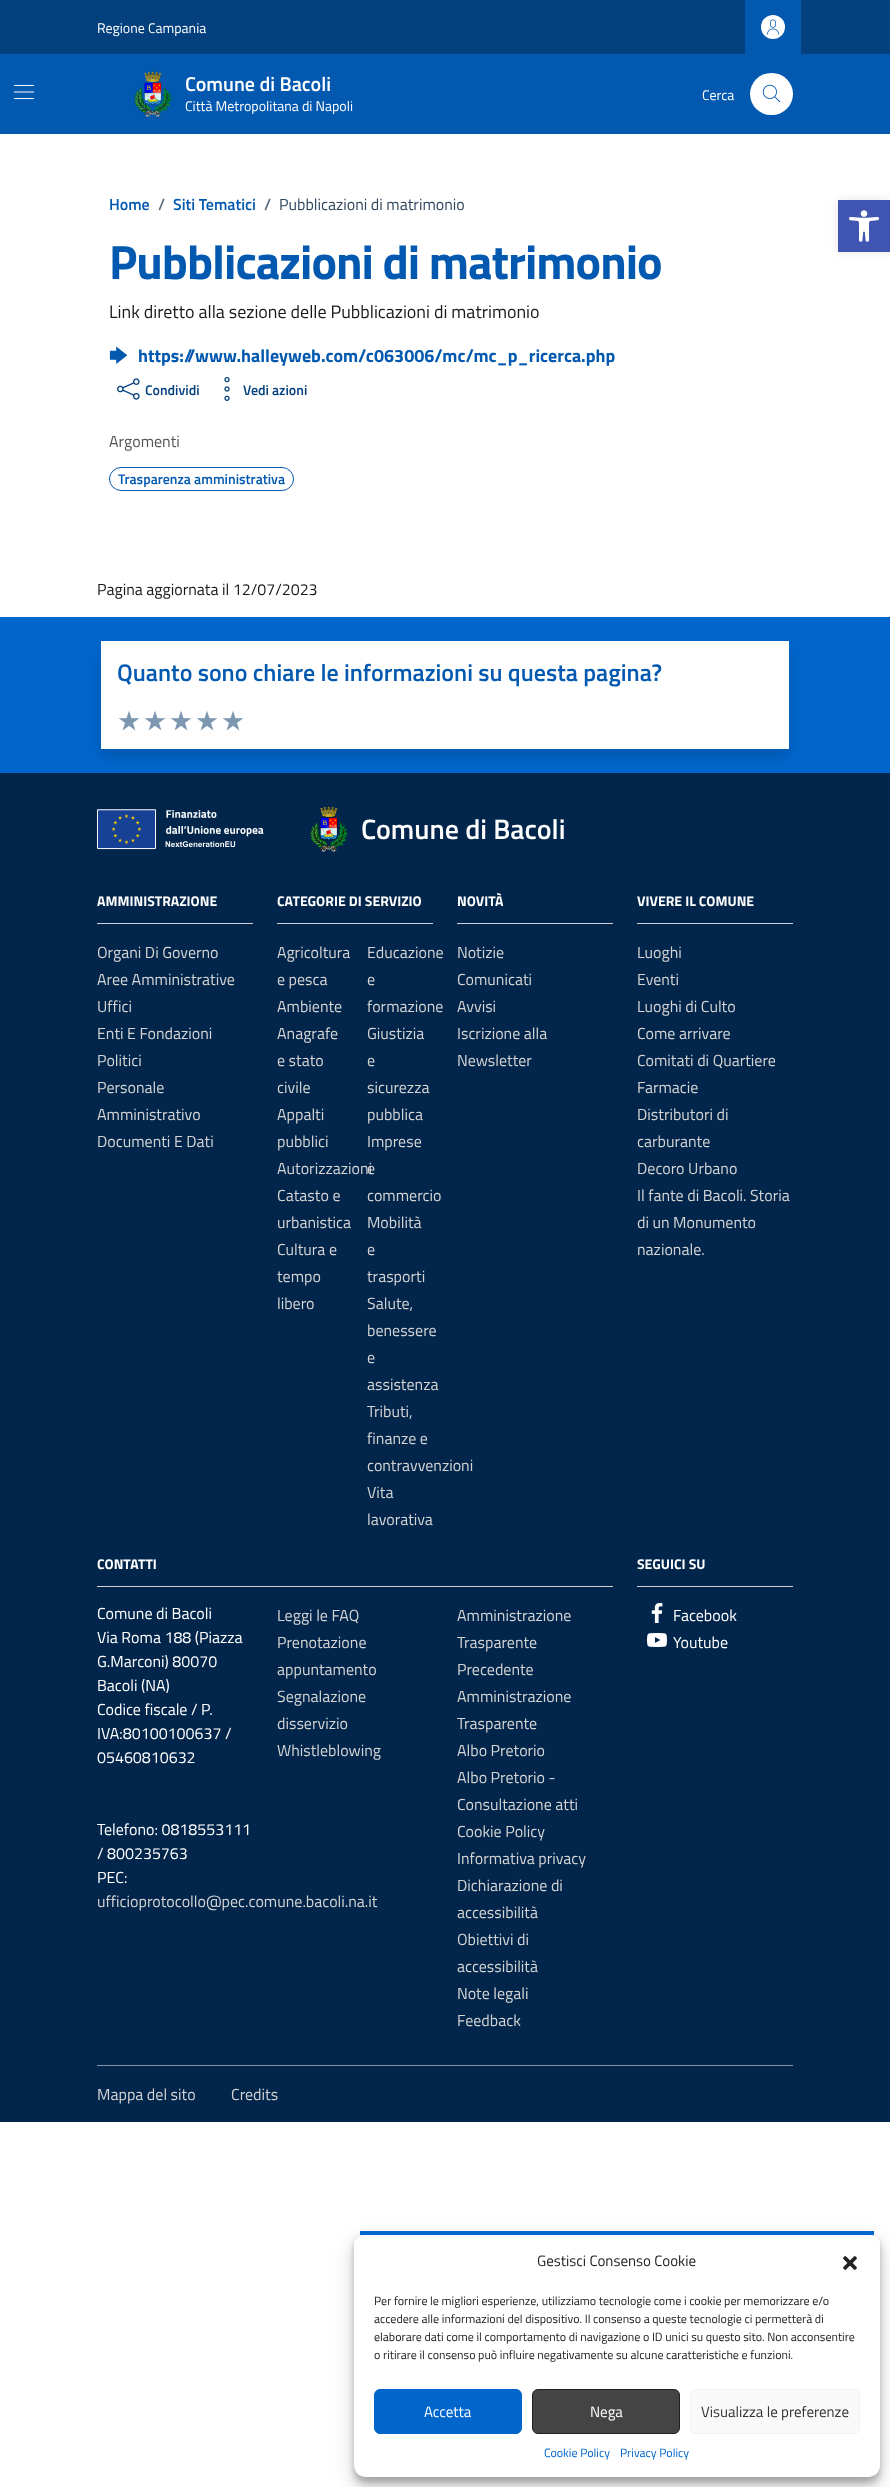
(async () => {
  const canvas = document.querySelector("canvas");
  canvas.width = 890;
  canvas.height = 2487;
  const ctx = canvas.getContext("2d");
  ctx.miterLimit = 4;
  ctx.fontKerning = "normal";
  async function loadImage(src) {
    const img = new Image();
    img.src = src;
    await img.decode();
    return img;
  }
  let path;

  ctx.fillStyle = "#ffffff";
  ctx.fillRect(0, 0, 890, 2487);
  ctx.fillStyle = "#03407d";
  ctx.fillRect(0, 0, 890, 54);
  ctx.fillStyle = "#0359b0";
  ctx.fillRect(745, 0, 56, 54);
  ctx.fillStyle = "#ffffff";
  ctx.beginPath();
  ctx.arc(773, 27, 12, 0, Math.PI * 2);
  ctx.fill();
  ctx.drawImage(await loadImage("img/1.png"), 767, 19, 12, 16);
  ctx.fillStyle = "#0359b0";
  ctx.fillRect(0, 54, 890, 80);
  ctx.drawImage(await loadImage("img/2.png"), 14, 85, 20, 14);
  ctx.drawImage(await loadImage("img/3.png"), 134, 71, 38, 46);
  ctx.fillStyle = "#ffffff";
  ctx.beginPath();
  ctx.roundRect(750, 73, 43, 42, 21);
  ctx.fill();
  ctx.drawImage(await loadImage("img/4.png"), 762, 84, 19, 19);
  ctx.drawImage(await loadImage("img/5.png"), 117, 378, 23, 22);
  ctx.drawImage(await loadImage("img/6.png"), 224, 377, 6, 24);
  ctx.beginPath();
  ctx.roundRect(109.5, 467.5, 184, 23, 11.5);
  ctx.strokeStyle = "#0359b0";
  ctx.stroke();
  ctx.fillStyle = "#0066cc";
  ctx.fillRect(0, 617, 890, 156);
  ctx.fillStyle = "#02264b";
  ctx.fillRect(0, 773, 890, 1349);
  ctx.fillStyle = "rgba(0, 0, 0, 0.15)";
  ctx.filter = "blur(8px)";
  ctx.beginPath();
  ctx.rect(101, 649, 688, 108);
  ctx.fill();
  ctx.filter = "none";
  ctx.fillStyle = "#ffffff";
  ctx.fillRect(101, 641, 688, 108);
  ctx.drawImage(await loadImage("img/7.png"), 118, 711, 22, 20);
  ctx.drawImage(await loadImage("img/7.png"), 144, 711, 22, 20);
  ctx.drawImage(await loadImage("img/7.png"), 170, 711, 22, 20);
  ctx.drawImage(await loadImage("img/7.png"), 196, 711, 22, 20);
  ctx.drawImage(await loadImage("img/7.png"), 222, 711, 22, 20);
  ctx.fillStyle = "rgba(0, 0, 0, 0.1)";
  ctx.filter = "blur(5px)";
  ctx.beginPath();
  ctx.rect(838, 200, 52, 52);
  ctx.fill();
  ctx.filter = "none";
  ctx.fillStyle = "#4054b2";
  ctx.fillRect(838, 200, 52, 52);
  ctx.drawImage(await loadImage("img/8.png"), 849, 210, 30, 32);
  ctx.drawImage(await loadImage("img/9.png"), 97, 809, 167, 41);
  ctx.drawImage(await loadImage("img/10.png"), 310, 806, 38, 46);
  for (const [x, y, w, h, color] of [
    [97, 923, 156, 1, "#d2d2d2"],
    [277, 923, 156, 1, "#d2d2d2"],
    [457, 923, 156, 1, "#d2d2d2"],
    [637, 923, 156, 1, "#d2d2d2"],
    [97, 1586, 516, 1, "#d2d2d2"],
    [637, 1586, 156, 1, "#d2d2d2"],
  ]) {
    ctx.fillStyle = color;
    ctx.fillRect(x, y, w, h);
  }
  ctx.drawImage(await loadImage("img/11.png"), 651, 1603, 12, 20);
  ctx.drawImage(await loadImage("img/12.png"), 647, 1633, 20, 14);
  ctx.fillStyle = "#8193a5";
  ctx.fillRect(97, 2065, 696, 1);
  ctx.fillStyle = "rgba(0, 0, 0, 0.23)";
  ctx.filter = "blur(3px)";
  ctx.beginPath();
  ctx.roundRect(354, 2237, 526, 246, 12);
  ctx.fill();
  ctx.filter = "none";
  ctx.fillStyle = "rgba(0, 0, 0, 0.19)";
  ctx.filter = "blur(10px)";
  ctx.beginPath();
  ctx.roundRect(354, 2241, 526, 246, 12);
  ctx.fill();
  ctx.filter = "none";
  ctx.fillStyle = "#ffffff";
  path = new Path2D("M366 2235H868C875 2235 880 2239 880 2243V2465C880 2472 875 2477 868 2477H366C359 2477 354 2472 354 2465V2243C354 2239 359 2235 366 2235Z");
  ctx.fill(path);
  ctx.fillStyle = "#0066cc";
  ctx.fillRect(360, 2231, 514, 4);
  ctx.drawImage(await loadImage("img/13.png"), 843, 2256, 14, 14);
  ctx.beginPath();
  ctx.roundRect(374.5, 2389.5, 147, 44, 5.5);
  ctx.fill();
  ctx.strokeStyle = "#0066cc";
  ctx.stroke();
  ctx.fillStyle = "#444444";
  ctx.beginPath();
  ctx.roundRect(532.5, 2389.5, 147, 44, 5.5);
  ctx.fill();
  ctx.strokeStyle = "#222222";
  ctx.stroke();
  ctx.fillStyle = "#f9f9f9";
  ctx.beginPath();
  ctx.roundRect(690.5, 2389.5, 169, 44, 5.5);
  ctx.fill();
  ctx.strokeStyle = "#f2f2f2";
  ctx.stroke();
  ctx.font = "14px Titillium Web";
  ctx.fillStyle = "#ffffff";
  ctx.fillText("Regione Campania", 97, 33);
  ctx.font = "600 20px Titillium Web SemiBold";
  ctx.fillText("Comune di Bacoli", 185, 91);
  ctx.font = "14px Titillium Web";
  ctx.fillText("Città Metropolitana di Napoli", 185, 111);
  ctx.fillText("Cerca", 702, 100);
  ctx.font = "600 16px Titillium Web SemiBold";
  ctx.fillStyle = "#0359b0";
  ctx.fillText("Home", 109, 210);
  ctx.fillStyle = "#5d7083";
  ctx.fillText("/", 158, 210);
  ctx.fillStyle = "#0359b0";
  ctx.fillText("Siti Tematici", 173, 210);
  ctx.fillStyle = "#5d7083";
  ctx.fillText("/", 264, 210);
  ctx.font = "16px Titillium Web";
  ctx.fillStyle = "#30475f";
  ctx.fillText("Pubblicazioni di matrimonio", 279, 210);
  ctx.letterSpacing = "-1px";
  ctx.font = "bold 48px Titillium Web";
  ctx.fillStyle = "#0359b0";
  ctx.fillText("Pubblicazioni di matrimonio", 109, 279);
  ctx.letterSpacing = "0px";
  ctx.font = "18px Titillium Web";
  ctx.fillStyle = "#191919";
  ctx.fillText("Link diretto alla sezione delle Pubblicazioni di matrimonio", 109, 318);
  ctx.font = "bold 18px 'Noto Sans Symbols 2'";
  ctx.fillStyle = "#0359b0";
  ctx.fillText("🡆", 109, 362);
  ctx.font = "bold 18px Titillium Web";
  ctx.fillText("https://www.halleyweb.com/c063006/mc/mc_p_ricerca.php", 138, 362);
  ctx.font = "600 14px Titillium Web SemiBold";
  ctx.fillStyle = "#03407d";
  ctx.fillText("Condividi", 145, 395);
  ctx.fillText("Vedi azioni", 243, 395);
  ctx.font = "16px Titillium Web";
  ctx.fillStyle = "#555555";
  ctx.fillText("Argomenti", 109, 447);
  ctx.font = "600 14px Titillium Web SemiBold";
  ctx.fillStyle = "#0359b0";
  ctx.fillText("Trasparenza amministrativa", 118, 484);
  ctx.font = "16px Titillium Web";
  ctx.fillStyle = "#191919";
  ctx.fillText("Pagina aggiornata il 12/07/2023", 97, 595);
  ctx.font = "600 24px Titillium Web SemiBold";
  ctx.fillStyle = "#0359b0";
  ctx.fillText("Quanto sono chiare le informazioni su questa pagina?", 117, 681);
  ctx.font = "600 28px Titillium Web SemiBold";
  ctx.fillStyle = "#ffffff";
  ctx.fillText("Comune di Bacoli", 361, 839);
  ctx.font = "bold 14px Titillium Web";
  ctx.fillText("AMMINISTRAZIONE", 97, 906);
  ctx.font = "16px Titillium Web";
  ctx.fillStyle = "#d4d4d4";
  for (const [text, x, y] of [
    ["Organi Di Governo", 97, 958],
    ["Aree Amministrative", 97, 985],
    ["Uffici", 97, 1012],
    ["Enti E Fondazioni", 97, 1039],
    ["Politici", 97, 1066],
    ["Personale", 97, 1093],
    ["Amministrativo", 97, 1120],
    ["Documenti E Dati", 97, 1147],
  ]) {
    ctx.fillText(text, x, y);
  }
  ctx.font = "bold 14px Titillium Web";
  ctx.fillStyle = "#ffffff";
  ctx.fillText("CATEGORIE DI SERVIZIO", 277, 906);
  ctx.font = "16px Titillium Web";
  ctx.fillStyle = "#d4d4d4";
  for (const [text, x, y] of [
    ["Agricoltura", 277, 958],
    ["e pesca", 277, 985],
    ["Ambiente", 277, 1012],
    ["Anagrafe", 277, 1039],
    ["e stato", 277, 1066],
    ["civile", 277, 1093],
    ["Appalti", 277, 1120],
    ["pubblici", 277, 1147],
    ["Autorizzazioni", 277, 1174],
    ["Catasto e", 277, 1201],
    ["urbanistica", 277, 1228],
    ["Cultura e", 277, 1255],
    ["tempo", 277, 1282],
    ["libero", 277, 1309],
    ["Educazione", 367, 958],
    ["e", 367, 985],
    ["formazione", 367, 1012],
    ["Giustizia", 367, 1039],
    ["e", 367, 1066],
    ["sicurezza", 367, 1093],
    ["pubblica", 367, 1120],
    ["Imprese", 367, 1147],
    ["e", 367, 1174],
    ["commercio", 367, 1201],
    ["Mobilità", 367, 1228],
    ["e", 367, 1255],
    ["trasporti", 367, 1282],
    ["Salute,", 367, 1309],
    ["benessere", 367, 1336],
    ["e", 367, 1363],
    ["assistenza", 367, 1390],
    ["Tributi,", 367, 1417],
    ["finanze e", 367, 1444],
    ["contravvenzioni", 367, 1471],
    ["Vita", 367, 1498],
    ["lavorativa", 367, 1525],
  ]) {
    ctx.fillText(text, x, y);
  }
  ctx.font = "bold 14px Titillium Web";
  ctx.fillStyle = "#ffffff";
  ctx.fillText("NOVITÀ", 457, 906);
  ctx.font = "16px Titillium Web";
  ctx.fillStyle = "#d4d4d4";
  for (const [text, x, y] of [
    ["Notizie", 457, 958],
    ["Comunicati", 457, 985],
    ["Avvisi", 457, 1012],
    ["Iscrizione alla", 457, 1039],
    ["Newsletter", 457, 1066],
  ]) {
    ctx.fillText(text, x, y);
  }
  ctx.font = "bold 14px Titillium Web";
  ctx.fillStyle = "#ffffff";
  ctx.fillText("VIVERE IL COMUNE", 637, 906);
  ctx.font = "16px Titillium Web";
  ctx.fillStyle = "#d4d4d4";
  for (const [text, x, y] of [
    ["Luoghi", 637, 958],
    ["Eventi", 637, 985],
    ["Luoghi di Culto", 637, 1012],
    ["Come arrivare", 637, 1039],
    ["Comitati di Quartiere", 637, 1066],
    ["Farmacie", 637, 1093],
    ["Distributori di", 637, 1120],
    ["carburante", 637, 1147],
    ["Decoro Urbano", 637, 1174],
    ["Il fante di Bacoli. Storia", 637, 1201],
    ["di un Monumento", 637, 1228],
    ["nazionale.", 637, 1255],
  ]) {
    ctx.fillText(text, x, y);
  }
  ctx.font = "bold 14px Titillium Web";
  ctx.fillStyle = "#ffffff";
  ctx.fillText("CONTATTI", 97, 1569);
  ctx.font = "16px Titillium Web";
  for (const [text, x, y] of [
    ["Comune di Bacoli", 97, 1619],
    ["Via Roma 188 (Piazza", 97, 1643],
    ["G.Marconi) 80070", 97, 1667],
    ["Bacoli (NA)", 97, 1691],
    ["Codice fiscale / P.", 97, 1715],
    ["IVA:80100100637 /", 97, 1739],
    ["05460810632", 97, 1763],
    ["Telefono: 0818553111", 97, 1835],
    ["/ 800235763", 97, 1859],
    ["PEC:", 97, 1883],
  ]) {
    ctx.fillText(text, x, y);
  }
  ctx.fillStyle = "#d4d4d4";
  for (const [text, x, y] of [
    ["ufficioprotocollo@pec.comune.bacoli.na.it", 97, 1907],
    ["Leggi le FAQ", 277, 1621],
    ["Prenotazione", 277, 1648],
    ["appuntamento", 277, 1675],
    ["Segnalazione", 277, 1702],
    ["disservizio", 277, 1729],
    ["Whistleblowing", 277, 1756],
    ["Amministrazione", 457, 1621],
    ["Trasparente", 457, 1648],
    ["Precedente", 457, 1675],
    ["Amministrazione", 457, 1702],
    ["Trasparente", 457, 1729],
    ["Albo Pretorio", 457, 1756],
    ["Albo Pretorio -", 457, 1783],
    ["Consultazione atti", 457, 1810],
    ["Cookie Policy", 457, 1837],
    ["Informativa privacy", 457, 1864],
    ["Dichiarazione di", 457, 1891],
    ["accessibilità", 457, 1918],
    ["Obiettivi di", 457, 1945],
    ["accessibilità", 457, 1972],
    ["Note legali", 457, 1999],
    ["Feedback", 457, 2026],
  ]) {
    ctx.fillText(text, x, y);
  }
  ctx.font = "bold 14px Titillium Web";
  ctx.fillStyle = "#ffffff";
  ctx.fillText("SEGUICI SU", 637, 1569);
  ctx.font = "16px Titillium Web";
  ctx.fillText("Facebook", 673, 1621);
  ctx.fillText("Youtube", 673, 1648);
  ctx.fillStyle = "#d4d4d4";
  ctx.fillText("Mappa del sito", 97, 2100);
  ctx.fillText("Credits", 231, 2100);
  ctx.font = "15px Titillium Web";
  ctx.fillStyle = "#222222";
  ctx.fillText("Gestisci Consenso Cookie", 537, 2266);
  ctx.font = "12px Titillium Web";
  for (const [text, x, y] of [
    ["Per fornire le migliori esperienze, utilizziamo tecnologie come i cookie per memorizzare e/o", 374, 2305],
    ["accedere alle informazioni del dispositivo. Il consenso a queste tecnologie ci permetterà di", 374, 2323],
    ["elaborare dati come il comportamento di navigazione o ID unici su questo sito. Non acconsentire", 374, 2341],
    ["o ritirare il consenso può influire negativamente su alcune caratteristiche e funzioni.", 374, 2359],
  ]) {
    ctx.fillText(text, x, y);
  }
  ctx.font = "15px Titillium Web";
  ctx.fillStyle = "#ffffff";
  ctx.fillText("Accetta", 424, 2417);
  ctx.fillText("Nega", 590, 2417);
  ctx.fillStyle = "#333333";
  ctx.fillText("Visualizza le preferenze", 701, 2417);
  ctx.font = "12px Titillium Web";
  ctx.fillStyle = "#0066cc";
  ctx.fillText("Cookie Policy", 544, 2457);
  ctx.fillText("Privacy Policy", 620, 2457);
})();
